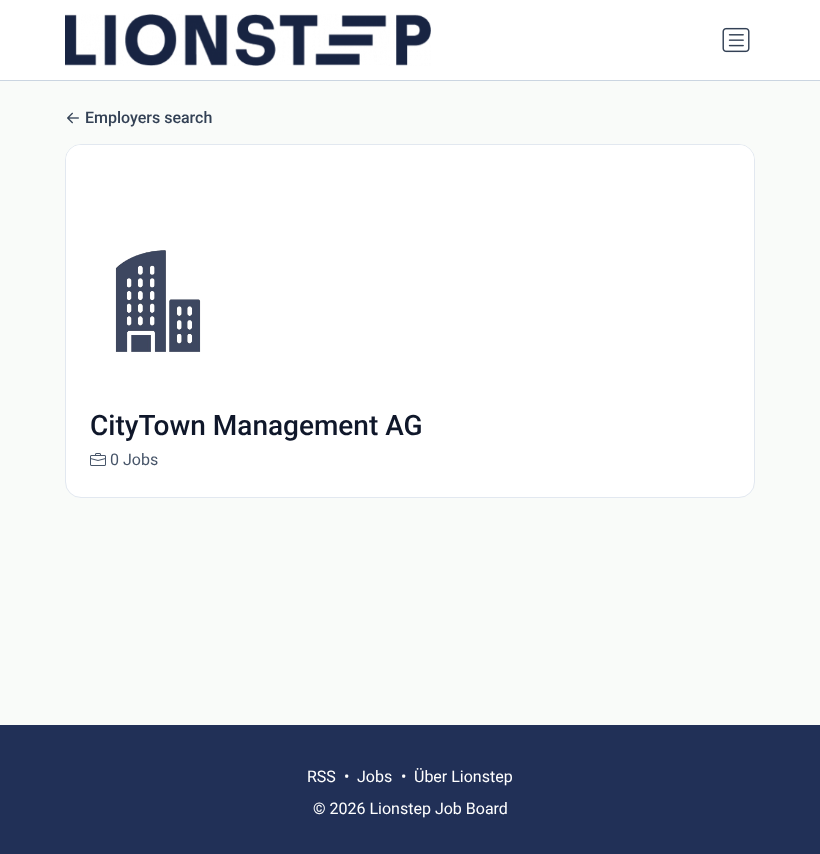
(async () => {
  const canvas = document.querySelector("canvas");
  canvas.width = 820;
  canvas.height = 854;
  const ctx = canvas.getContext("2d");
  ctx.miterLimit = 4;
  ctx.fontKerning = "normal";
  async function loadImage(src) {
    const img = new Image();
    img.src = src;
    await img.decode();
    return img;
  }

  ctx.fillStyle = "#f9fbf9";
  ctx.fillRect(0, 0, 820, 854);
  ctx.fillStyle = "#ffffff";
  ctx.fillRect(0, 0, 820, 80);
  ctx.fillStyle = "#cbd5e1";
  ctx.fillRect(0, 80, 820, 1);
  ctx.drawImage(await loadImage("img/1.png"), 65, 14, 366, 52);
  ctx.drawImage(await loadImage("img/2.png"), 722, 27, 28, 26);
  ctx.drawImage(await loadImage("img/3.png"), 67, 112, 12, 12);
  ctx.fillStyle = "#ffffff";
  ctx.beginPath();
  ctx.roundRect(65.5, 144.5, 689, 353, 15.5);
  ctx.fill();
  ctx.strokeStyle = "#e2e8f0";
  ctx.stroke();
  ctx.beginPath();
  ctx.roundRect(66, 145, 688, 200, [15, 15, 0, 0]);
  ctx.fill();
  ctx.drawImage(await loadImage("img/4.png"), 115, 250, 86, 102);
  ctx.drawImage(await loadImage("img/5.png"), 90, 453, 16, 13);
  ctx.fillStyle = "#213057";
  ctx.fillRect(0, 725, 820, 129);
  ctx.font = "500 16px Roboto";
  ctx.fillStyle = "#334155";
  ctx.fillText("Employers search", 85, 123);
  ctx.font = "500 28px Roboto";
  ctx.fillStyle = "#0f172a";
  ctx.fillText("CityTown Management AG", 90, 435);
  ctx.font = "16px Roboto";
  ctx.fillStyle = "#475569";
  ctx.fillText("0 Jobs", 110, 465);
  ctx.fillStyle = "#ffffff";
  for (const [text, x, y] of [
    ["RSS", 307, 782],
    ["•", 344, 782],
    ["Jobs", 357, 782],
    ["•", 401, 782],
    ["Über Lionstep", 414, 782],
    ["© 2026 Lionstep Job Board", 313, 814],
  ]) {
    ctx.fillText(text, x, y);
  }
})();
